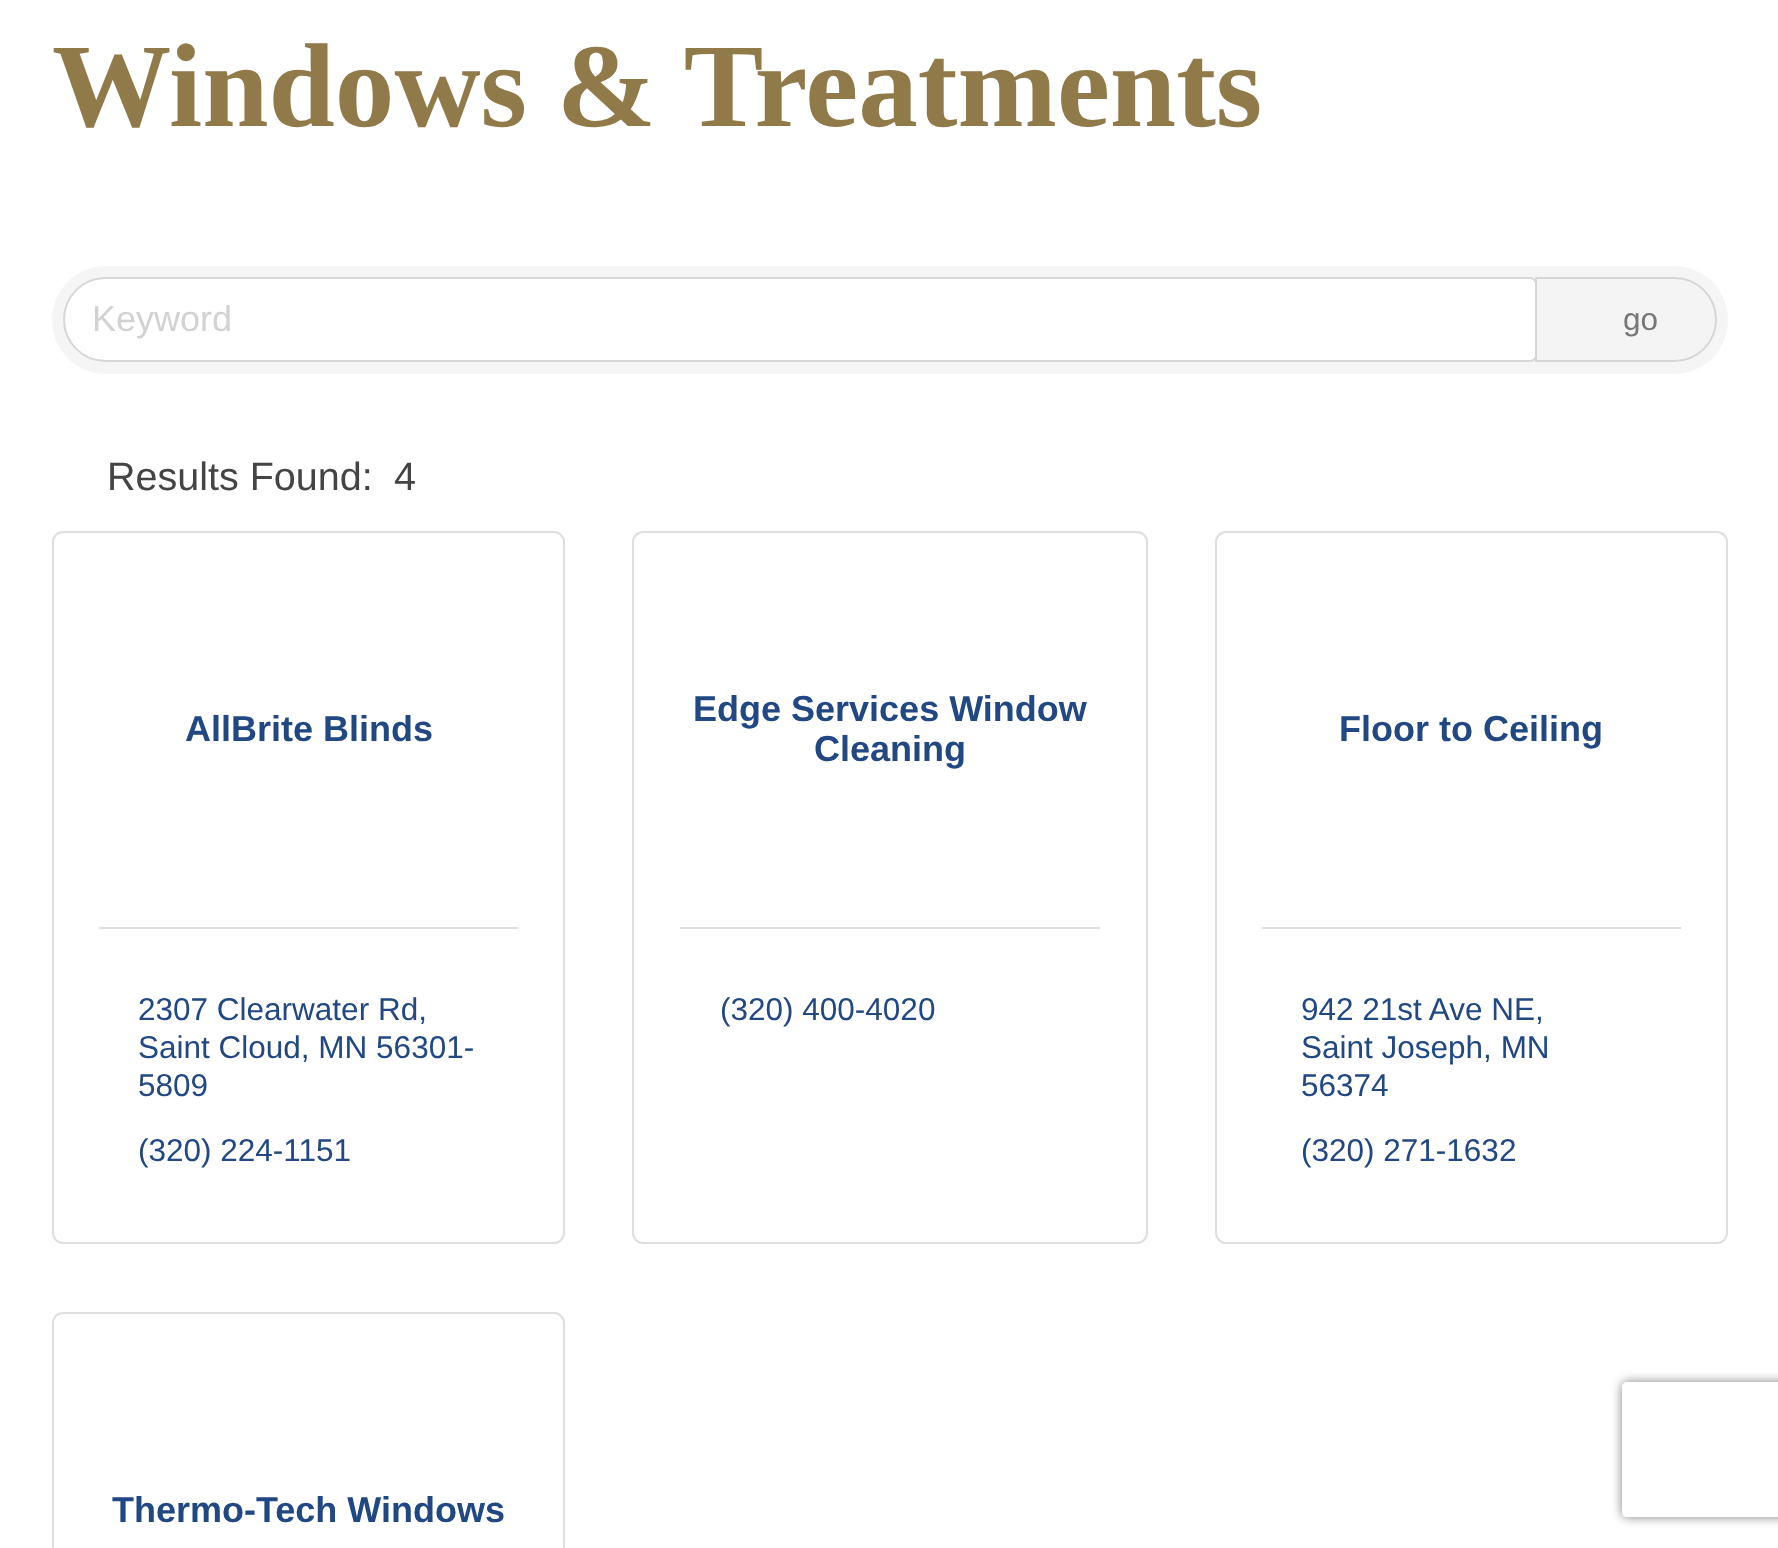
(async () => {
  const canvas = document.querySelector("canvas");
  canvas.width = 1778;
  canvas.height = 1548;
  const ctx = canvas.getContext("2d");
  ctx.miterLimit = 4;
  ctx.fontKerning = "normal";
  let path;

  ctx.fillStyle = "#ffffff";
  ctx.fillRect(0, 0, 1778, 1548);
  ctx.fillStyle = "#f5f5f5";
  ctx.beginPath();
  ctx.roundRect(52, 266, 1676, 108, 54);
  ctx.fill();
  ctx.fillStyle = "#ffffff";
  ctx.beginPath();
  ctx.roundRect(65, 279, 1470, 81, [40.5, 5, 5, 40.5]);
  ctx.fill();
  ctx.beginPath();
  ctx.roundRect(64, 278, 1472, 83, [41.5, 6, 6, 41.5]);
  ctx.strokeStyle = "rgba(0, 0, 0, 0.12)";
  ctx.lineWidth = 2;
  ctx.stroke();
  ctx.fillStyle = "#f4f4f4";
  ctx.beginPath();
  ctx.roundRect(1536, 278, 180, 83, [0, 41.5, 41.5, 0]);
  ctx.fill();
  ctx.strokeStyle = "#d6d6d6";
  ctx.stroke();
  ctx.beginPath();
  ctx.roundRect(53, 532, 511, 711, 10);
  ctx.strokeStyle = "#dfdfdf";
  ctx.stroke();
  ctx.fillStyle = "#dfdfdf";
  ctx.fillRect(99, 927, 419, 2);
  ctx.beginPath();
  ctx.roundRect(633, 532, 514, 711, 10);
  ctx.stroke();
  ctx.fillRect(680, 927, 420, 2);
  ctx.beginPath();
  ctx.roundRect(1216, 532, 511, 711, 10);
  ctx.stroke();
  ctx.fillRect(1262, 927, 419, 2);
  ctx.beginPath();
  ctx.roundRect(53, 1313, 511, 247, 10);
  ctx.stroke();
  ctx.save();
  path = new Path2D("M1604 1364H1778V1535H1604ZM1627 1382H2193C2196 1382 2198 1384 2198 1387V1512C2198 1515 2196 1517 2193 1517H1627C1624 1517 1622 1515 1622 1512V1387C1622 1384 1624 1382 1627 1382Z");
  ctx.clip(path, "evenodd");
  ctx.fillStyle = "#808080";
  ctx.filter = "blur(5.5px)";
  ctx.beginPath();
  ctx.roundRect(1622, 1382, 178, 135, 5);
  ctx.fill();
  ctx.filter = "none";
  ctx.restore();
  ctx.font = "bold 119.25px Liberation Serif";
  ctx.fillStyle = "#917a4a";
  ctx.fillText("Windows & Treatments", 52, 126);
  ctx.font = "36px Liberation Sans";
  ctx.fillStyle = "#d2d2d2";
  ctx.fillText("Keyword", 92, 331);
  ctx.font = "31.5px Liberation Sans";
  ctx.fillStyle = "#777777";
  ctx.fillText("go", 1623, 330);
  ctx.font = "39.5px Liberation Sans";
  ctx.fillStyle = "#444444";
  ctx.fillText("Results Found:", 107, 490);
  ctx.fillText("4", 394, 490);
  ctx.font = "bold 36px Liberation Sans";
  ctx.fillStyle = "#224884";
  ctx.fillText("AllBrite Blinds", 185, 741);
  ctx.font = "31.5px Liberation Sans";
  for (const [text, x, y] of [
    ["2307 Clearwater Rd,", 138, 1020],
    ["Saint Cloud, MN 56301-", 138, 1058],
    ["5809", 138, 1096],
    ["(320) 224-1151", 138, 1161],
  ]) {
    ctx.fillText(text, x, y);
  }
  ctx.font = "bold 36px Liberation Sans";
  ctx.fillText("Edge Services Window", 693, 721);
  ctx.fillText("Cleaning", 814, 761);
  ctx.font = "31.5px Liberation Sans";
  ctx.fillText("(320) 400-4020", 720, 1020);
  ctx.font = "bold 36px Liberation Sans";
  ctx.fillText("Floor to Ceiling", 1339, 741);
  ctx.font = "31.5px Liberation Sans";
  for (const [text, x, y] of [
    ["942 21st Ave NE,", 1301, 1020],
    ["Saint Joseph, MN", 1301, 1058],
    ["56374", 1301, 1096],
    ["(320) 271-1632", 1301, 1161],
  ]) {
    ctx.fillText(text, x, y);
  }
  ctx.font = "bold 36px Liberation Sans";
  ctx.fillText("Thermo-Tech Windows", 112, 1522);
})();
